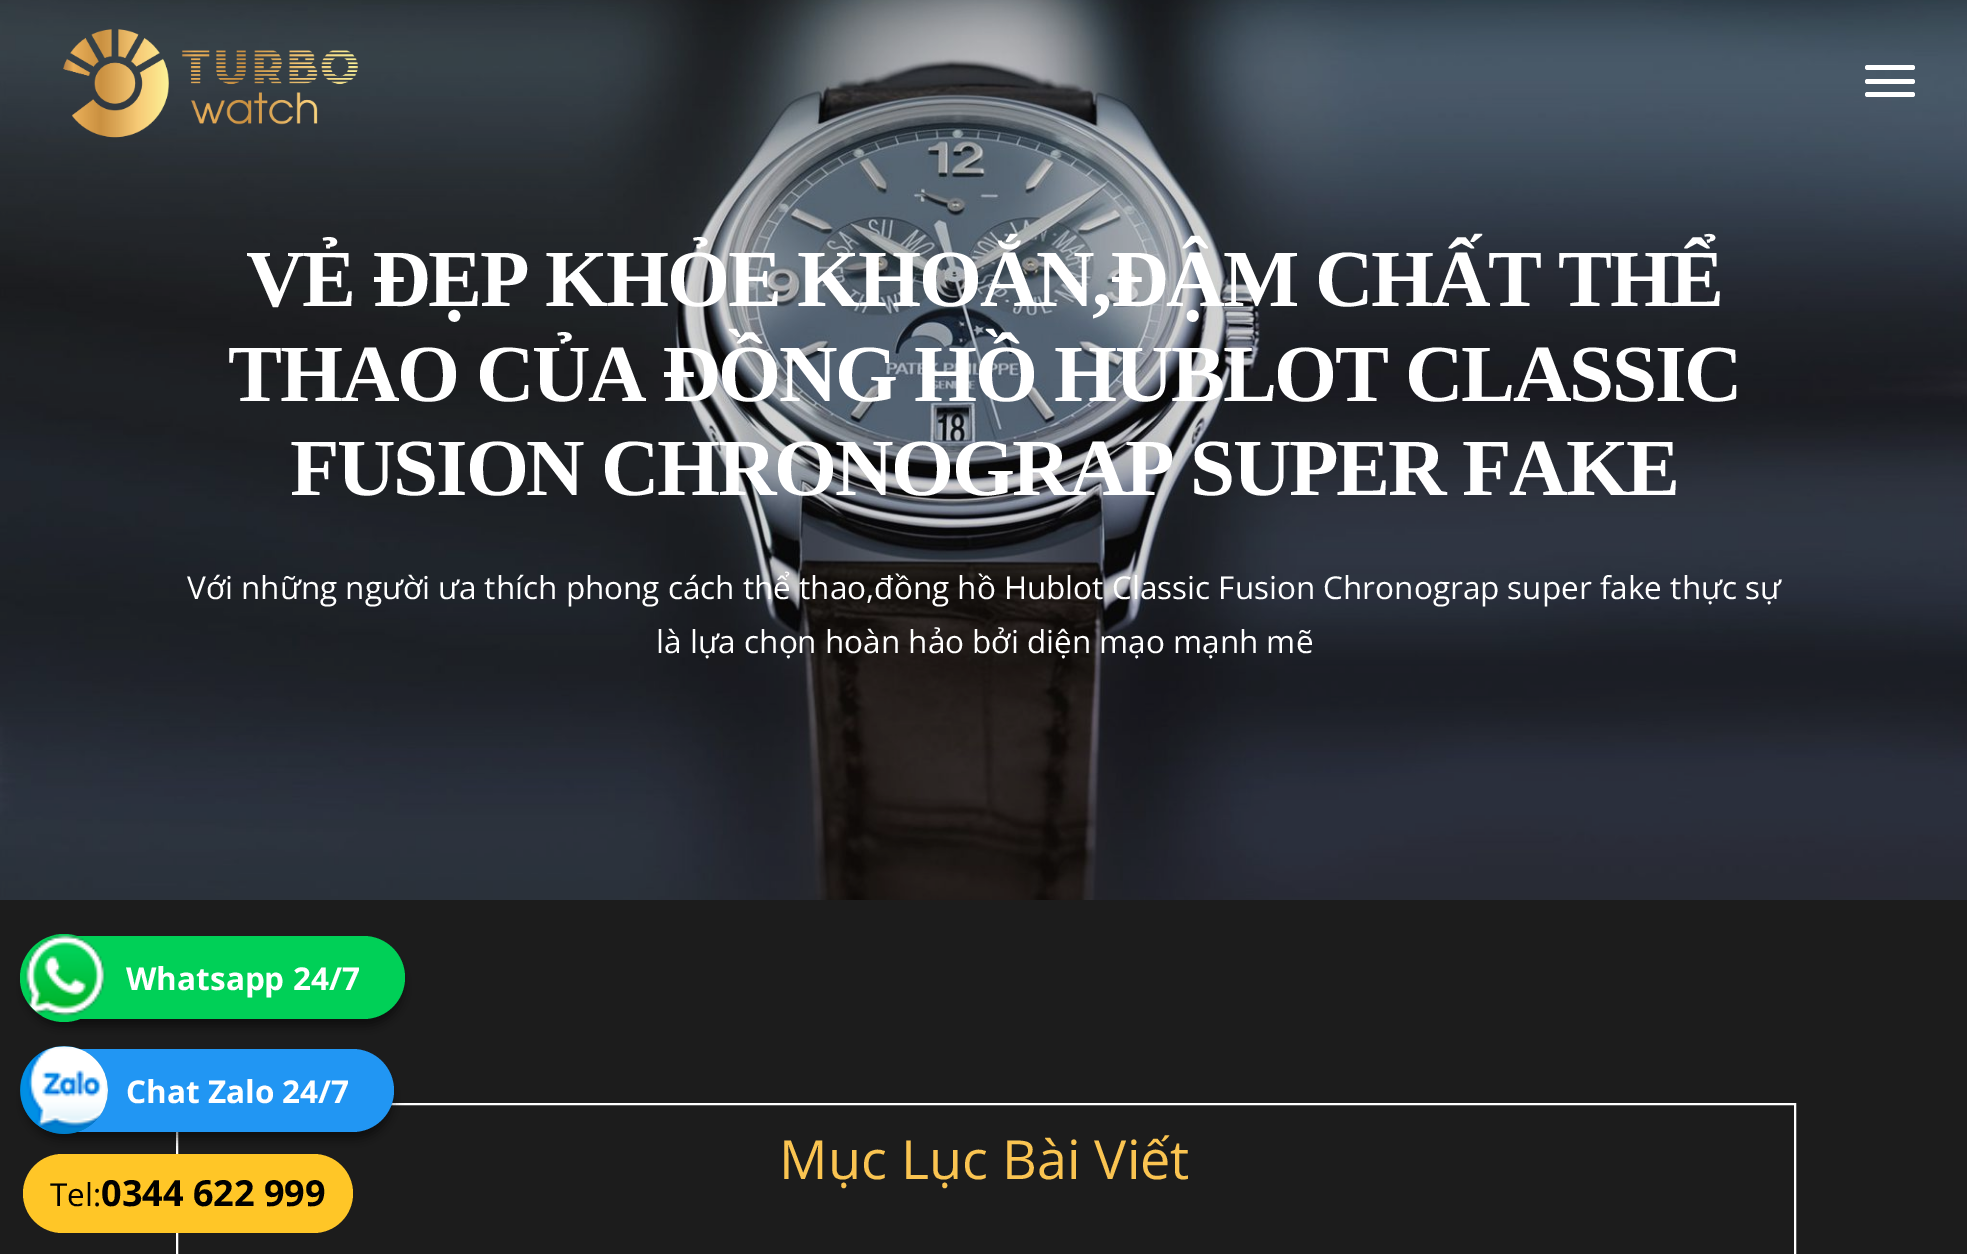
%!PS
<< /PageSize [1967 1254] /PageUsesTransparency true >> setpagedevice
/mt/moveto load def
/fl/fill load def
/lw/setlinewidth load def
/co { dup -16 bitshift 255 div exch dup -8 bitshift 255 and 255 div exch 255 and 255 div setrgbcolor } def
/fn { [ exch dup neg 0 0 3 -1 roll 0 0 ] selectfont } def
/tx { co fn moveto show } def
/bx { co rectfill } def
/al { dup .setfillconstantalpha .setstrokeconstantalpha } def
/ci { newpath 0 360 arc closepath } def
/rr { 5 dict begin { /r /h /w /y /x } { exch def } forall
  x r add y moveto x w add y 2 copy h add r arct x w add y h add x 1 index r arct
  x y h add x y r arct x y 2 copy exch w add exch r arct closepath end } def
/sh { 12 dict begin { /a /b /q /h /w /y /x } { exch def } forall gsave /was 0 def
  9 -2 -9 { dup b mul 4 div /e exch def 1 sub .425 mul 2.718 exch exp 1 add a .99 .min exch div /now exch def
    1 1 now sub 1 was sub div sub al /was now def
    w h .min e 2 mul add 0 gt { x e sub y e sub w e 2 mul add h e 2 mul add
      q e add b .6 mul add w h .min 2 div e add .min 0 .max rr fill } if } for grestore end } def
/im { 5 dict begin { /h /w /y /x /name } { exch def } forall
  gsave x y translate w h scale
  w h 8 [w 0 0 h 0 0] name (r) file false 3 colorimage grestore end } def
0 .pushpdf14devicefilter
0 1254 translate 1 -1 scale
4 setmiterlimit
0 0 1967 1254 16#1C1C1C bx
(media/2.raw) 0 0 1967 900 im
(media/1.raw) 63 29 295 109 im
16#FFFFFF co
1865 65 50 5 2.5 rr fl
1865 79 50 5 2.5 rr fl
1865 92 50 5 2.5 rr fl
16#000000 co
25 947 378 79 39.5 5.5 .5 sh
16#00D057 co
23 936 382 83 41.5 rr fl
64 978 44 ci fl
(media/3.raw) 24 935 82 81 im
16#FFFFFF co
2 lw
177 1104 1618 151 rectstroke
16#000000 co
25 1060 367 79 39.5 5.5 .5 sh
16#2196F3 co
23 1049 371 83 41.5 rr fl
16#0072B2 co
64 1090 44 ci fl
(media/4.raw) 20 1046 88 88 im
16#FFC627 co
23 1154 330 79 39.5 rr fl
/LiberationSerif-Bold 81 fn
16#FFFFFF co
246 306 mt -2.25 0 (VẺ ĐẸP KHỎE KHOẮN,ĐẬM CHẤT THỂ) ashow
228 401 mt -2.25 0 (THAO CỦA ĐỒNG HỒ HUBLOT CLASSIC) ashow
290 495 mt -2.25 0 (FUSION CHRONOGRAP SUPER FAKE) ashow
(Với những người ưa thích phong cách thể thao,đồng hồ Hublot Classic Fusion Chronograp super fake thực sự) 187 599 /OpenSans-Regular 31.5 16#FFFFFF tx
(là lựa chọn hoàn hảo bởi diện mạo mạnh mẽ) 656 653 /OpenSans-Regular 31.5 16#FFFFFF tx
(Whatsapp 24/7) 126 990 /OpenSans-Bold 31.5 16#FFFFFF tx
(Chat Zalo 24/7) 126 1103 /OpenSans-Bold 31.5 16#FFFFFF tx
(Mục Lục Bài Viết) 779 1179 /OpenSans-Regular 54 16#FAC451 tx
(Tel:) 50 1206 /OpenSans-Regular 31.5 16#000000 tx
(0344 622 999) 101 1206 /OpenSans-Bold 36 16#000000 tx
.poppdf14devicefilter showpage
